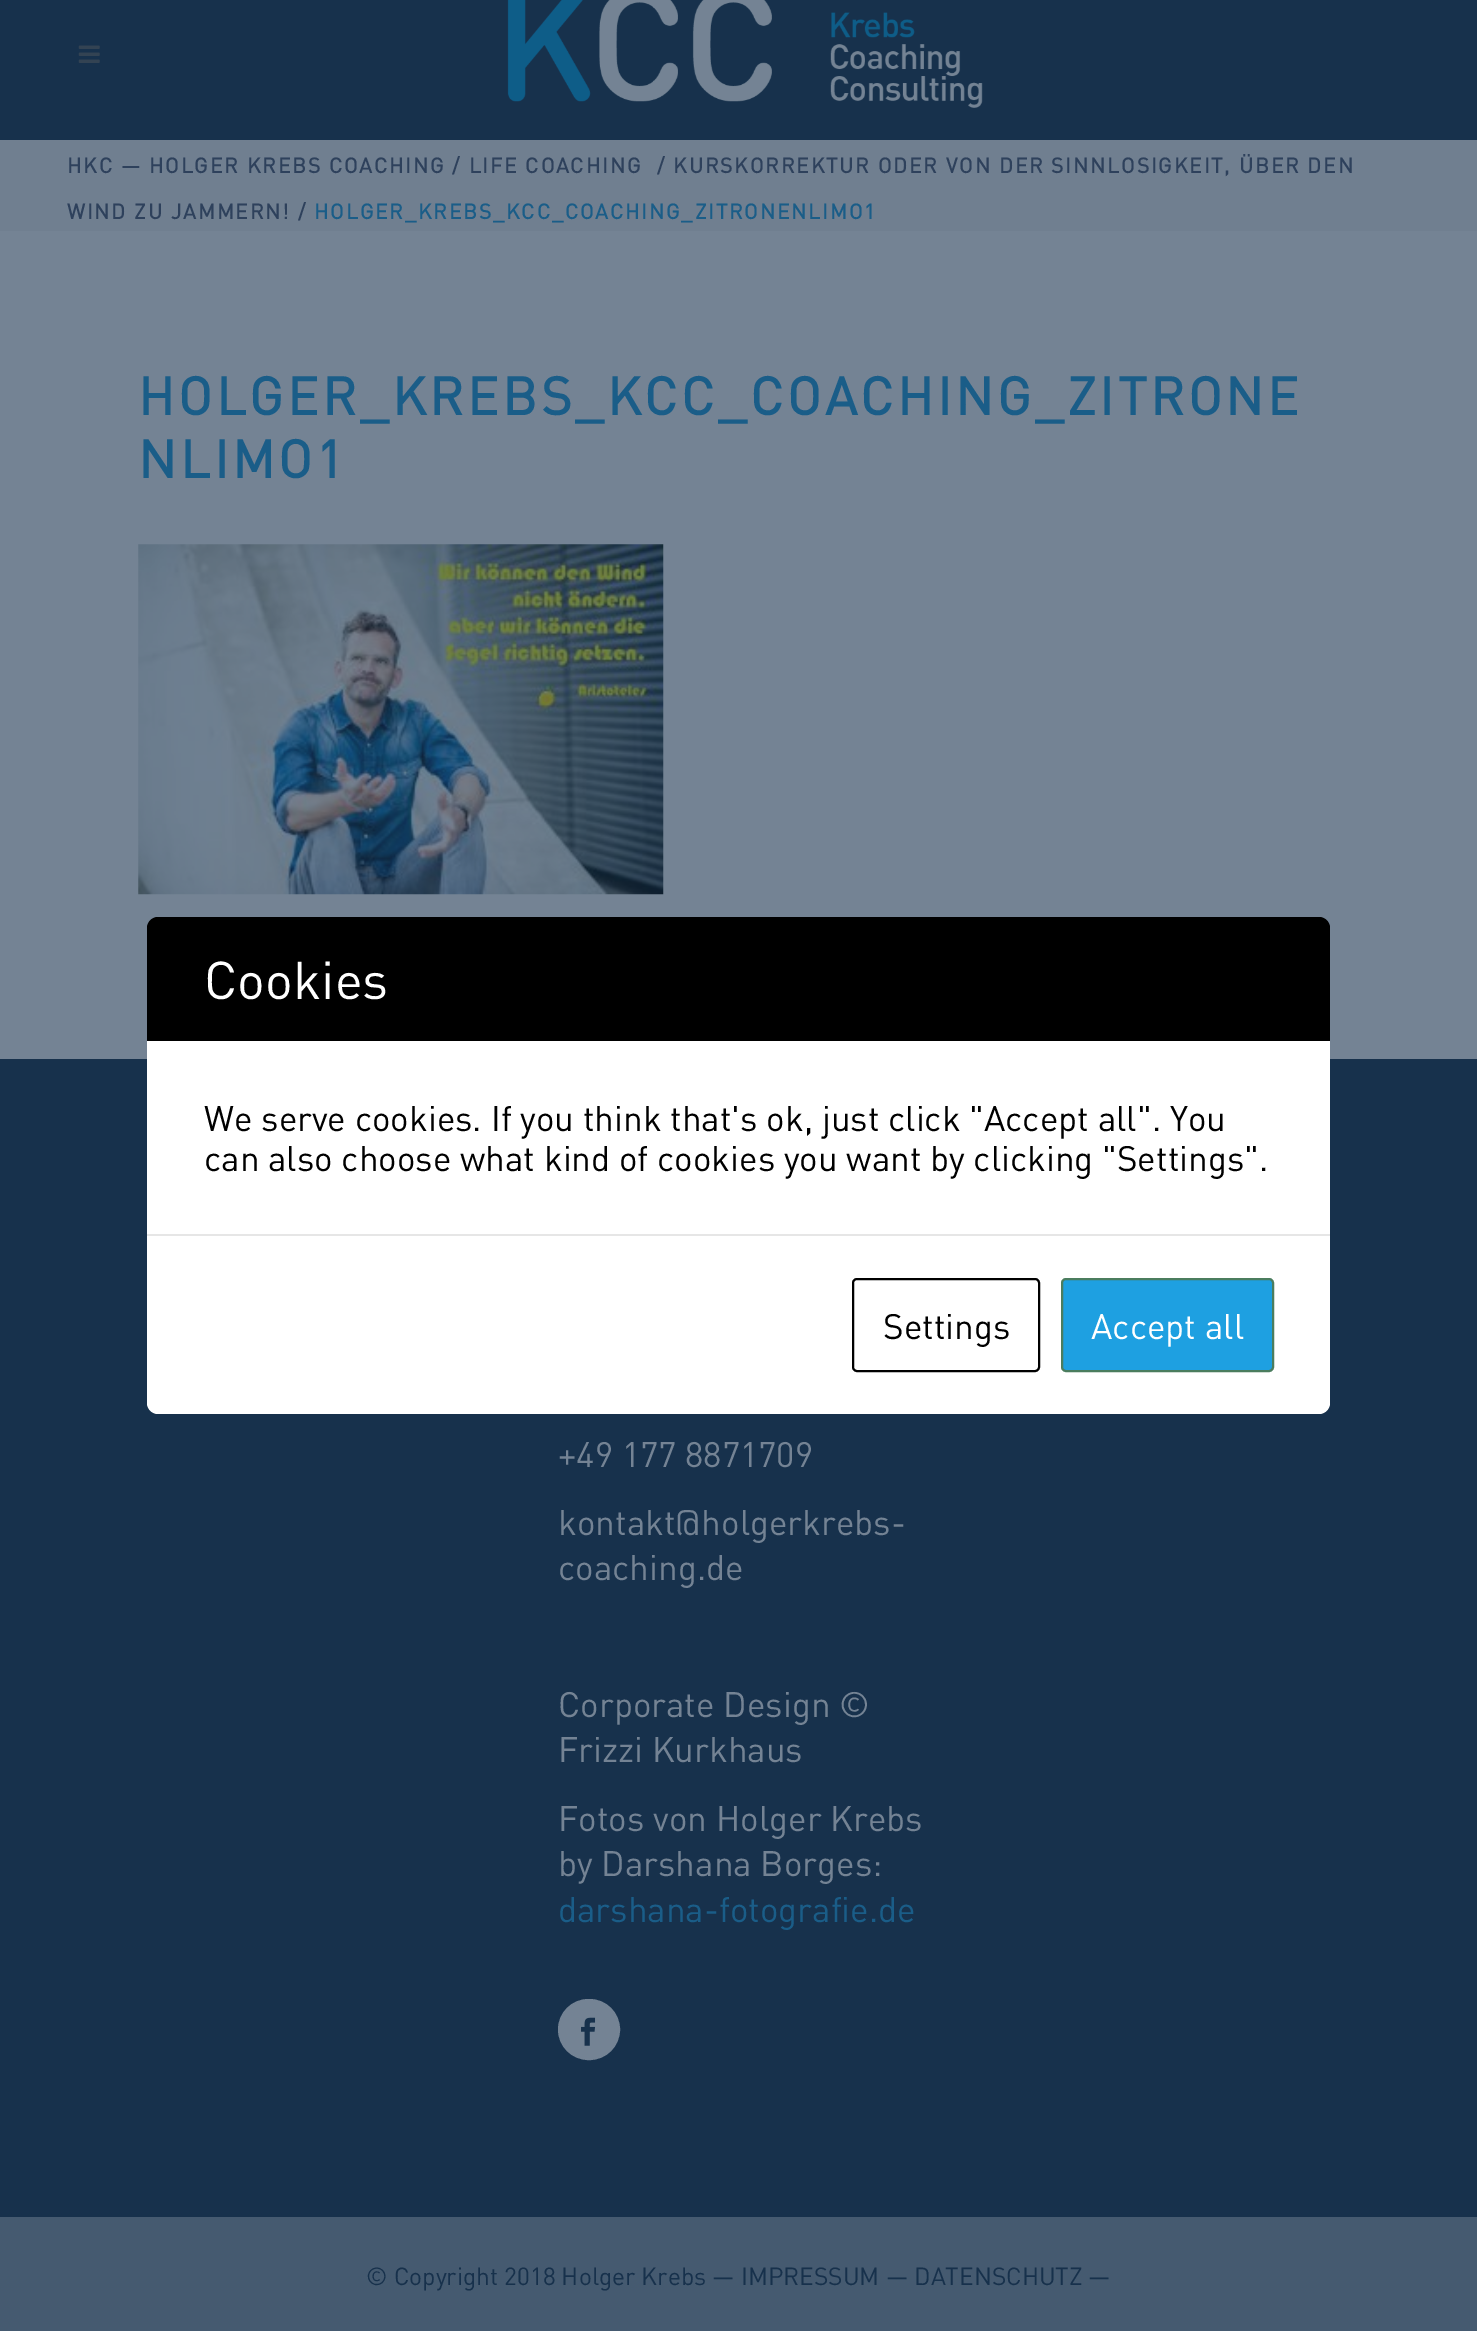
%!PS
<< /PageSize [1477 2331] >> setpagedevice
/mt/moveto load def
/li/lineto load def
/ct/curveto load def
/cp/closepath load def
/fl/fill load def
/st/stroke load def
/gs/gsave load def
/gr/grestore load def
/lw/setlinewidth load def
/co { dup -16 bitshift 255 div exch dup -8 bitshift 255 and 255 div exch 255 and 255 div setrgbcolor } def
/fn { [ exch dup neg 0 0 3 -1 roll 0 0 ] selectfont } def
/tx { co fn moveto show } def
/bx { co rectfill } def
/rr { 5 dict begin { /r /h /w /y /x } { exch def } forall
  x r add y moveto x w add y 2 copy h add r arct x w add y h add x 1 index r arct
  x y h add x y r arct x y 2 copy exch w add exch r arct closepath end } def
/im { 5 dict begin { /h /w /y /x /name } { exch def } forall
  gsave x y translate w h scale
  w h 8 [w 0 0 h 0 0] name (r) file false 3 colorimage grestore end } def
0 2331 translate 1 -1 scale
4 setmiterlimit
0 0 1477 2331 16#748394 bx
0 0 1477 140 16#17314C bx
(media/1.raw) 78 45 22 18 im
(media/2.raw) 507 0 476 108 im
0 140 1477 91 16#707F90 bx
(media/3.raw) 138 544 526 351 im
0 1059 1477 1158 16#17314C bx
16#748394 co
559 2000 60 59 29.5 rr gs fl gr
2 lw
st
(media/4.raw) 581 2017 15 29 im
0 2217 1477 114 16#455A70 bx
16#000000 co
158 917 mt 1319 917 li 1325 917 1330 922 1330 928 ct 1330 1041 li 147 1041 li 147 928 li 147 922 152 917 158 917 ct cp fl
147 1041 1183 193 16#FFFFFF bx
147 1234 mt 1330 1234 li 1330 1403 li 1330 1409 1325 1414 1319 1414 ct 158 1414 li 152 1414 147 1409 147 1403 ct cp fl
147 1234 1183 2 16#E6E6E6 bx
16#000000 co
853 1279 186 92 4 rr st
16#1EA0E1 co
1062 1279 211 92 4 rr gs fl gr
16#4B7D5E co
st
/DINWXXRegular-Bold 21 fn
16#2E415C co
67 173 mt 1.75 0 (HKC — HOLGER KREBS COACHING / LIFE COACHING) ashow
657 173 mt 1.75 0 (/ KURSKORREKTUR ODER VON DER SINNLOSIGKEIT, ÜBER DEN) ashow
67 219 mt 1.75 0 (WIND ZU JAMMERN! /) ashow
16#1A5D88 co
314 219 mt 1.75 0 (HOLGER_KREBS_KCC_COACHING_ZITRONENLIMO1) ashow
/DINWXXRegular-Bold 52.5 fn
138 415 mt 3.5 0 (HOLGER_KREBS_KCC_COACHING_ZITRONE) ashow
138 478 mt 3.5 0 (NLIMO1) ashow
(+49 177 8871709) 558 1467 /DINWXXRegular-Regular 35 16#748394 tx
(kontakt@holgerkrebs-) 558 1535 /DINWXXRegular-Regular 35 16#748394 tx
(coaching.de) 558 1580 /DINWXXRegular-Regular 35 16#748394 tx
(Corporate Design ©) 558 1717 /DINWXXRegular-Regular 35 16#748394 tx
(Frizzi Kurkhaus) 558 1762 /DINWXXRegular-Regular 35 16#748394 tx
(Fotos von Holger Krebs) 558 1831 /DINWXXRegular-Regular 35 16#748394 tx
(by Darshana Borges:) 558 1876 /DINWXXRegular-Regular 35 16#748394 tx
(darshana-fotografie.de) 558 1922 /DINWXXRegular-Regular 35 16#1A5D88 tx
(© Copyright 2018 Holger Krebs — IMPRESSUM — DATENSCHUTZ —) 366 2285 /DINWXXRegular-Regular 24.5 16#17314C tx
(Cookies) 204 999 /DINWXXRegular-Regular 52.5 16#FFFFFF tx
(We serve cookies. If you think that's ok, just click "Accept all". You) 204 1131 /DINWXXRegular-Regular 35 16#000000 tx
(can also choose what kind of cookies you want by clicking "Settings".) 204 1171 /DINWXXRegular-Regular 35 16#000000 tx
(Settings) 883 1339 /DINWXXRegular-Regular 35 16#000000 tx
(Accept all) 1091 1339 /DINWXXRegular-Regular 35 16#FFFFFF tx
showpage
